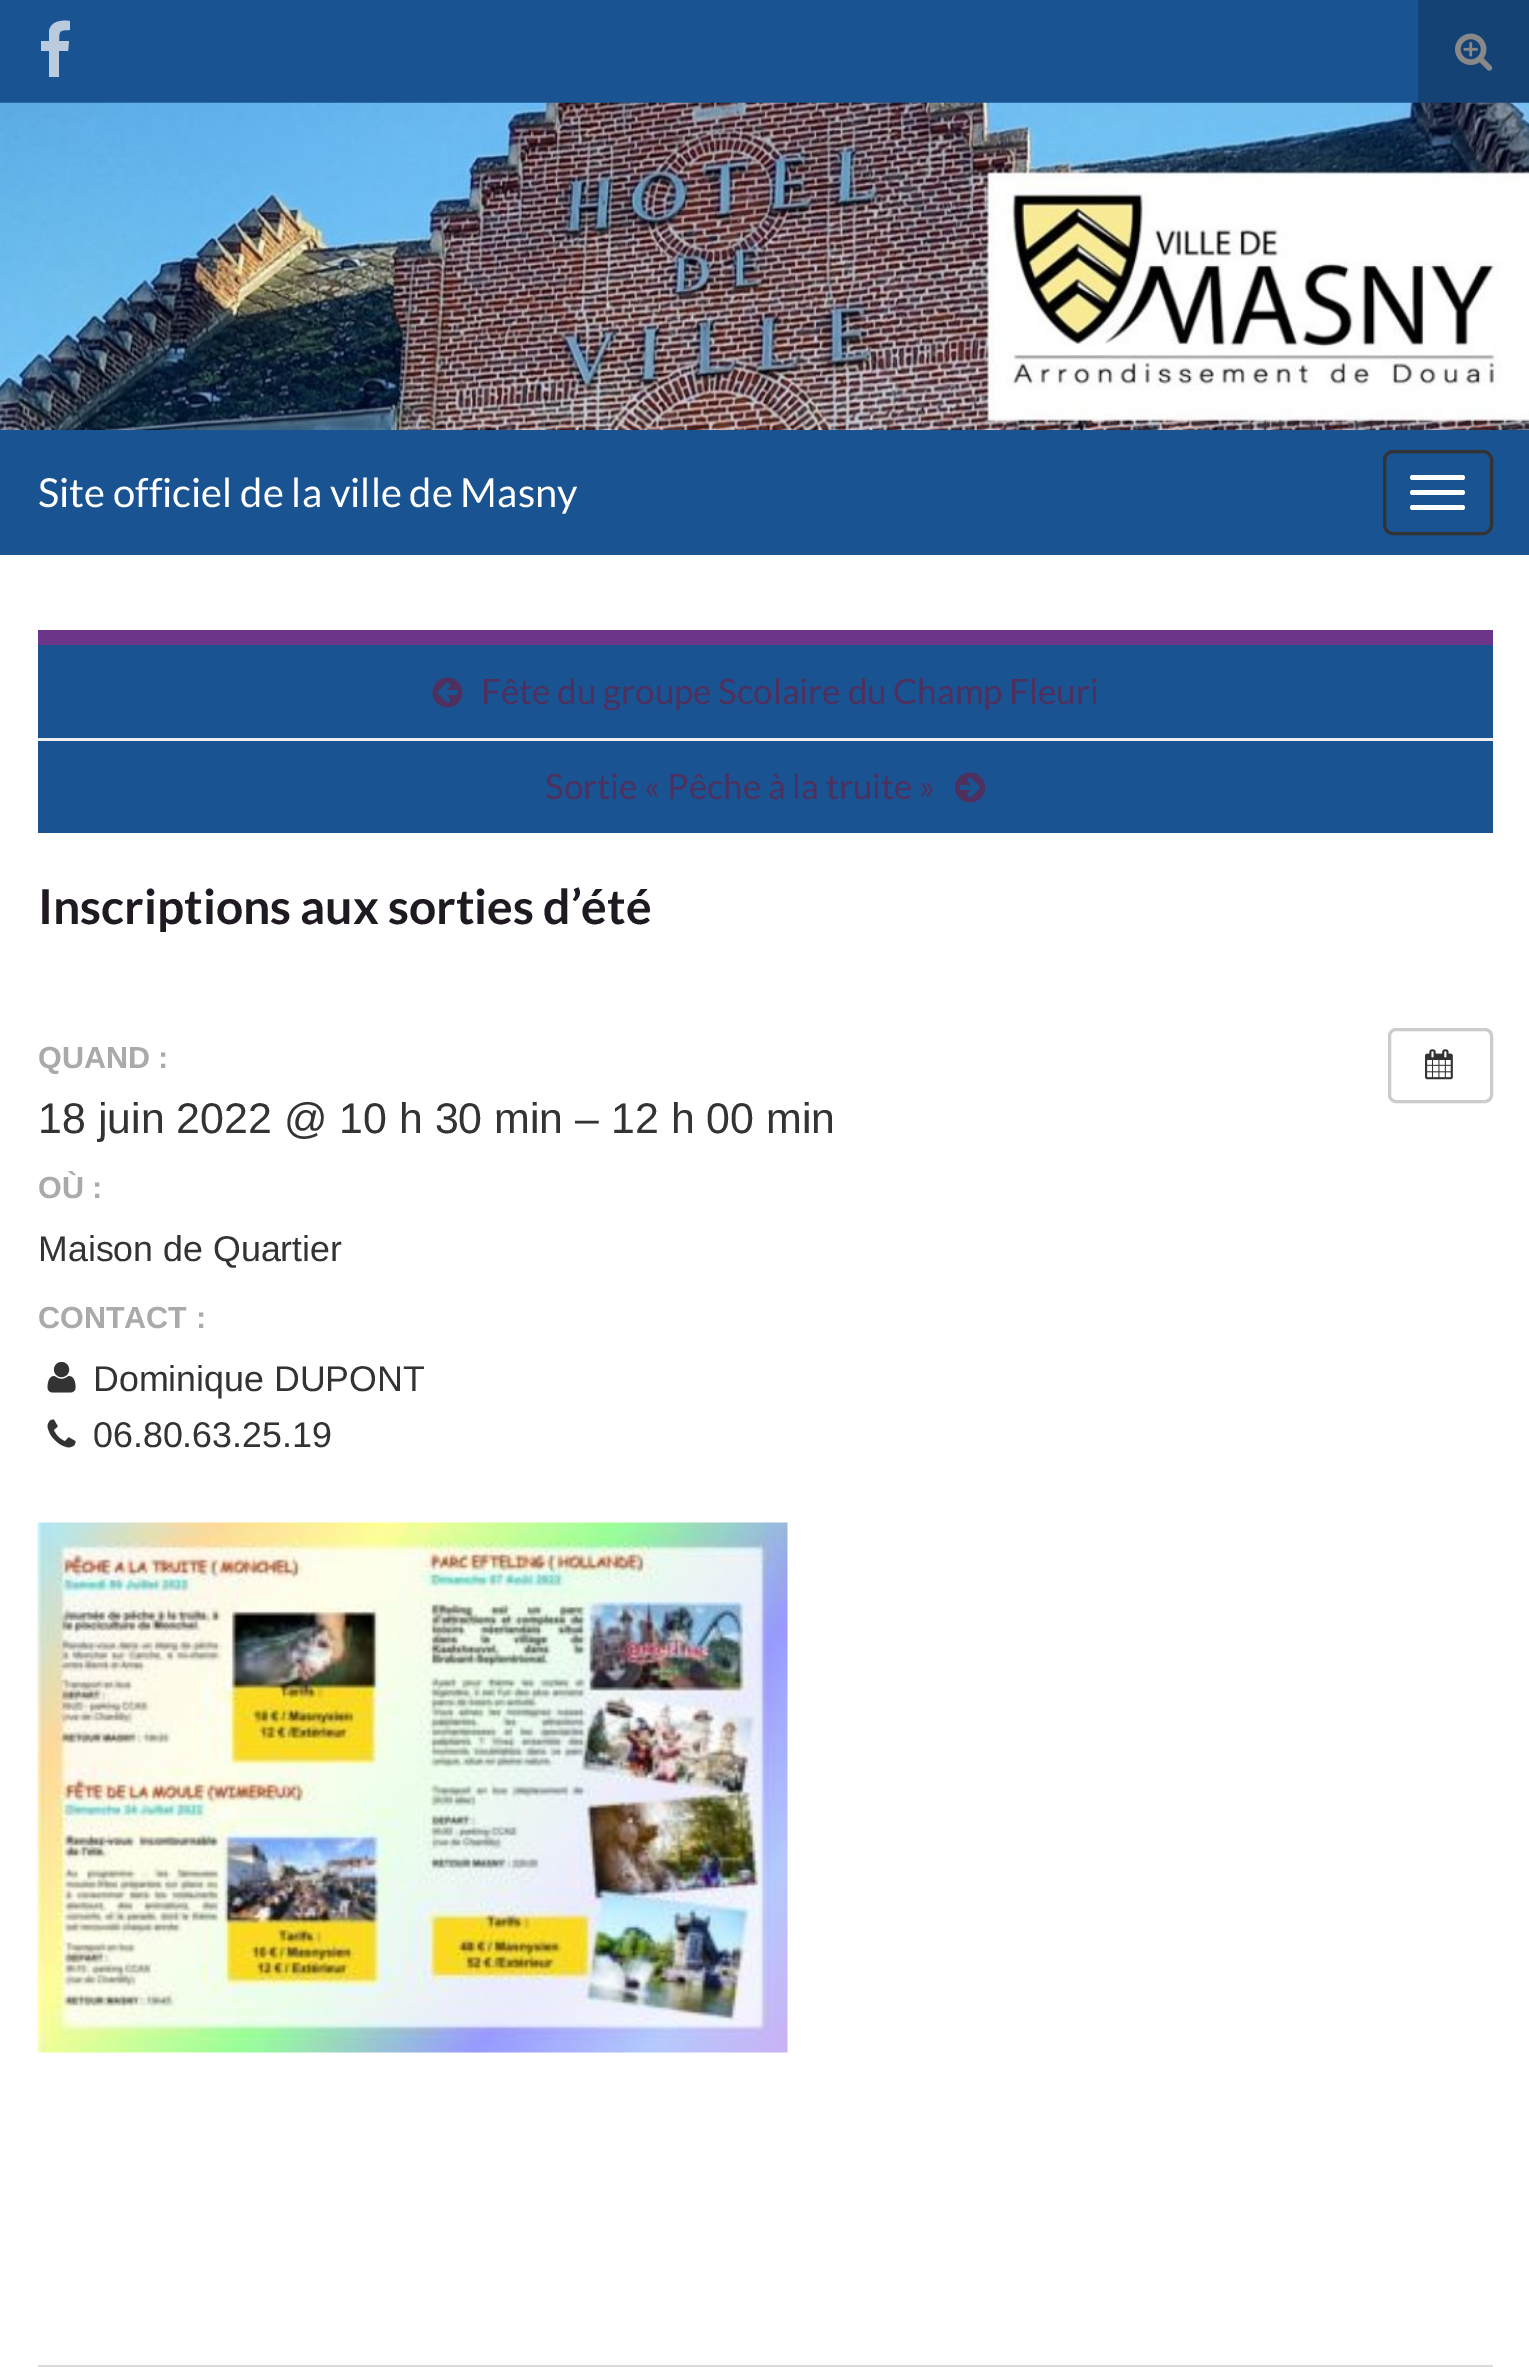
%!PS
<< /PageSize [1529 2367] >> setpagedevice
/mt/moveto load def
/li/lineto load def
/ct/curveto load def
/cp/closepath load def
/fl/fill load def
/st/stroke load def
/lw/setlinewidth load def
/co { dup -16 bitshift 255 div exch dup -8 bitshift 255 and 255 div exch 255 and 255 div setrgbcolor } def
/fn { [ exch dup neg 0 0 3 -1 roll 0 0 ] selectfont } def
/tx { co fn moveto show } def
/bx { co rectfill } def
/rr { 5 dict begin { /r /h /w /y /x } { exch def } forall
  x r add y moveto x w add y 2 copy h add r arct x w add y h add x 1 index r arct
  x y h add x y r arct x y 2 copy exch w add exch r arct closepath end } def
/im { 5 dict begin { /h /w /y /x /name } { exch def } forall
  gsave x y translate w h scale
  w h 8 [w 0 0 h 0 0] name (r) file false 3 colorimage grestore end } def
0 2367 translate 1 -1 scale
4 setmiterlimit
0 0 1529 2367 16#FFFFFF bx
0 0 1418 103 16#195392 bx
16#BACBDE co
70 21 mt 70 30 li 59 30 59 31 59 41 ct 69 41 li 68 51 li 59 51 li 59 77 li 49 77 li 49 51 li 41 51 li 41 41 li 49 41 li 49 31 li 51 21 61 20 70 21 ct cp fl
1418 0 111 103 16#144275 bx
(media/1.raw) 1455 33 38 38 im
(media/2.raw) 0 102 1529 328 im
0 430 1529 125 16#195392 bx
16#333333 co
3 lw
1384.5 451.5 107 82 8.5 rr st
16#FFFFFF co
1410 475 55 5 2.5 rr fl
1410 490 55 5 2.5 rr fl
1410 505 55 5 2.5 rr fl
38 645 1455 188 16#195392 bx
38 630 1455 15 16#6B3589 bx
(media/3.raw) 432 677 31 31 im
38 738 1455 3 16#EEEEEE bx
(media/4.raw) 955 772 30 31 im
(media/5.raw) 47 1361 29 32 im
(media/6.raw) 47 1419 29 29 im
16#CCCCCC co
1389.5 1029.5 102 72 6.5 rr st
(media/7.raw) 1425 1049 28 31 im
(media/8.raw) 37 1522 751 531 im
38 2365 1455 2 16#DBDBDB bx
(Site officiel de la ville de Masny) 38 507 /Lato-Regular 40 16#FFFFFF tx
(Fête du groupe Scolaire du Champ Fleuri) 481 704 /Lato-Regular 35 16#4E305E tx
(Sortie « Pêche à la truite ») 545 799 /Lato-Regular 35 16#4E305E tx
(Inscriptions aux sorties d’été) 38 924 /Lato-Bold 48 16#1F1A22 tx
(QUAND :) 38 1068 /LiberationSans-Bold 30.5 16#AAAAAA tx
(18 juin 2022 @ 10 h 30 min – 12 h 00 min) 38 1133 /LiberationSans-Regular 42.9 16#333333 tx
(OÙ :) 38 1198 /LiberationSans-Bold 30.5 16#AAAAAA tx
(Maison de Quartier) 38 1261 /LiberationSans-Regular 35.75 16#333333 tx
(CONTACT :) 38 1328 /LiberationSans-Bold 30.5 16#AAAAAA tx
(Dominique DUPONT) 93 1391 /LiberationSans-Regular 35.75 16#333333 tx
(06.80.63.25.19) 93 1447 /LiberationSans-Regular 35.75 16#333333 tx
showpage
